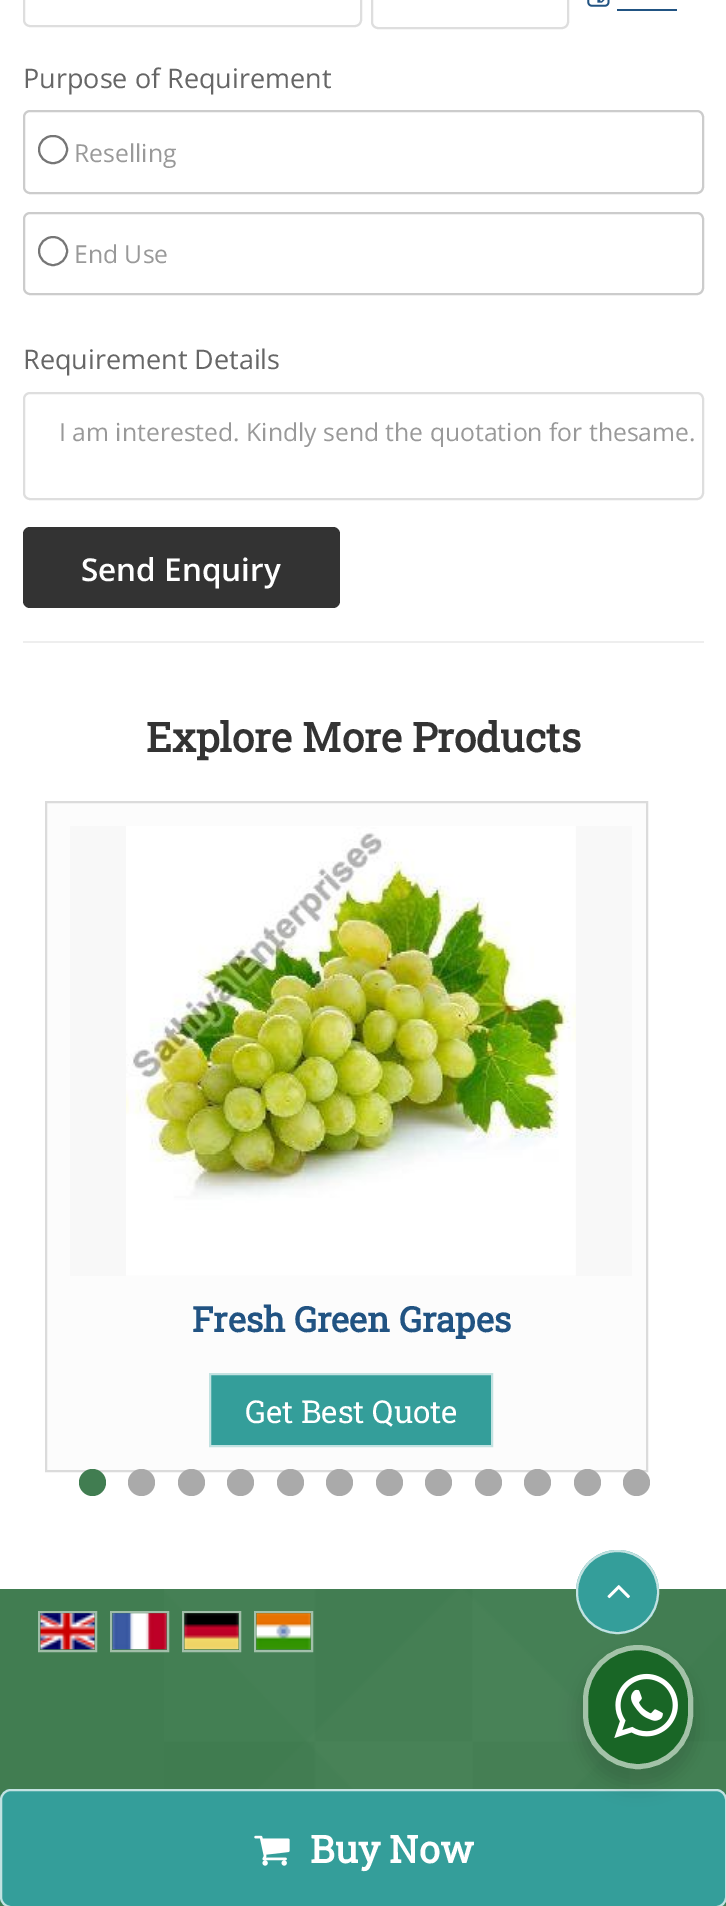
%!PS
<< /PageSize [726 1906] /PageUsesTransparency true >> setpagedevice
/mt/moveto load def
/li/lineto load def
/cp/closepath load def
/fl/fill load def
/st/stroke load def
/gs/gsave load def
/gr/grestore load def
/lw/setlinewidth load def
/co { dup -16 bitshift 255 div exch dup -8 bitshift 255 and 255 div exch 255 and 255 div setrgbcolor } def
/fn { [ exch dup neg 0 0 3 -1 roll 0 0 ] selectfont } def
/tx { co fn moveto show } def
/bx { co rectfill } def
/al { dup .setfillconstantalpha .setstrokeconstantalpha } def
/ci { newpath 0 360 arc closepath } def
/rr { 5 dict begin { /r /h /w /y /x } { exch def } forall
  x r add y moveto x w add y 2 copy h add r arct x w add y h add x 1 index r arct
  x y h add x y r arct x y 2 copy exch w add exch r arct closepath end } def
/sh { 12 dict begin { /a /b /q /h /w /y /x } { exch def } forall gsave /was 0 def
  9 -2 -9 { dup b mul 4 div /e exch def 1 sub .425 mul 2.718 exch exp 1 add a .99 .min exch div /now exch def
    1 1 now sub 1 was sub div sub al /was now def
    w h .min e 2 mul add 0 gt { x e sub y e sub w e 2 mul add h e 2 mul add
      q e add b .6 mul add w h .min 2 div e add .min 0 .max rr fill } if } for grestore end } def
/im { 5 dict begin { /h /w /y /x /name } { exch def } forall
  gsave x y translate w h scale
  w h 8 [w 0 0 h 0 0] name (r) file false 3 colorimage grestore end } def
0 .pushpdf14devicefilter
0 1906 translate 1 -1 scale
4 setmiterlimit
0 0 726 1906 16#FFFFFF bx
23 641 681 2 16#EEEEEE bx
16#DEDEDE co
2 lw
24 -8 337 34 6 rr st
372 -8 196 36 6 rr st
(media/1.raw) 587 0 23 7 im
617 9 60 2 16#215382 bx
16#CCCCCC co
24 111 679 82 6 rr st
16#767676 co
39 136 28 27 13.5 rr st
16#CCCCCC co
24 213 679 81 6 rr st
16#767676 co
53 251 14 ci st
16#DEDEDE co
24 393 679 106 6 rr st
16#333333 co
23 527 317 81 7 rr fl
16#FCFCFC co
46 802 mt 647 802 li 647 1471 li 46 1471 li cp gs fl gr
16#DBDBDB co
st
70 826 562 450 16#F8F8F8 bx
(media/2.raw) 126 826 450 450 im
16#349E9A co
210 1374 mt 492 1374 li 492 1446 li 210 1446 li cp gs fl gr
16#C2E2E1 co
st
16#417D51 co
92.5 1482.5 13.5 ci fl
16#AAAAAA co
141.5 1482.5 13.5 ci fl
191.5 1482.5 13.5 ci fl
240.5 1482.5 13.5 ci fl
290.5 1482.5 13.5 ci fl
339.5 1482.5 13.5 ci fl
389.5 1482.5 13.5 ci fl
438.5 1482.5 13.5 ci fl
488.5 1482.5 13.5 ci fl
537.5 1482.5 13.5 ci fl
587.5 1482.5 13.5 ci fl
636.5 1482.5 13.5 ci fl
0 1589 726 317 16#417D51 bx
(media/4.raw) 164 1589 562 317 im
16#349E9A co
0 1789 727 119 11 rr fl
0.7 al
16#FFFFFF co
1 1790 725 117 10 rr st
1 al
(media/3.raw) 254 1835 36 31 im
16#A0BEA8 co
39 1612 57 39 rectstroke
0.5 al
16#FFFFFF co
111 1612 57 39 rectstroke
1 al
16#A2BFAA co
183 1612 57 39 rectstroke
16#A2C0AA co
255 1612 57 39 rectstroke
(media/5.raw) 40 1613 55 37 im
(media/6.raw) 112 1613 55 37 im
(media/7.raw) 184 1613 55 37 im
(media/8.raw) 256 1613 55 37 im
16#349E9A co
576 1550 83 84 41.5 rr fl
0.7 al
16#FFFFFF co
577 1551 81 82 40.5 rr st
1 al
(media/9.raw) 607 1585 23 14 im
16#000000 co
578 1654 120 133 60 9 .14 sh
16#196626 co
583 1645 110 124 55 rr fl
0.6 al
16#FFFFFF co
5 lw
585.5 1647.5 105 119 52.5 rr st
1 al
(media/10.raw) 614 1673 64 65 im
(Purpose of Requirement) 23 88 /OpenSans-Regular 27 16#666666 tx
(Reselling) 74 162 /OpenSans-Regular 24.75 16#999999 tx
(End Use) 74 263 /OpenSans-Regular 24.75 16#999999 tx
(Requirement Details) 23 369 /OpenSans-Regular 27 16#666666 tx
(I am interested. Kindly send the quotation for thesame.) 59 441 /OpenSans-Regular 24.75 16#999999 tx
(Send Enquiry) 81 581 /OpenSans-SemiBold 31.5 16#FFFFFF tx
(Explore More Products) 146 752 /RobotoSlab-Bold 40.5 16#333333 tx
(Fresh Green Grapes) 192 1332 /RobotoSlab-Bold 34.75 16#215382 tx
(Get Best Quote) 245 1423 /RobotoSlab-Regular 31.5 16#FFFFFF tx
(Buy Now) 310 1863 /RobotoSlab-Bold 38 16#FFFFFF tx
.poppdf14devicefilter showpage
